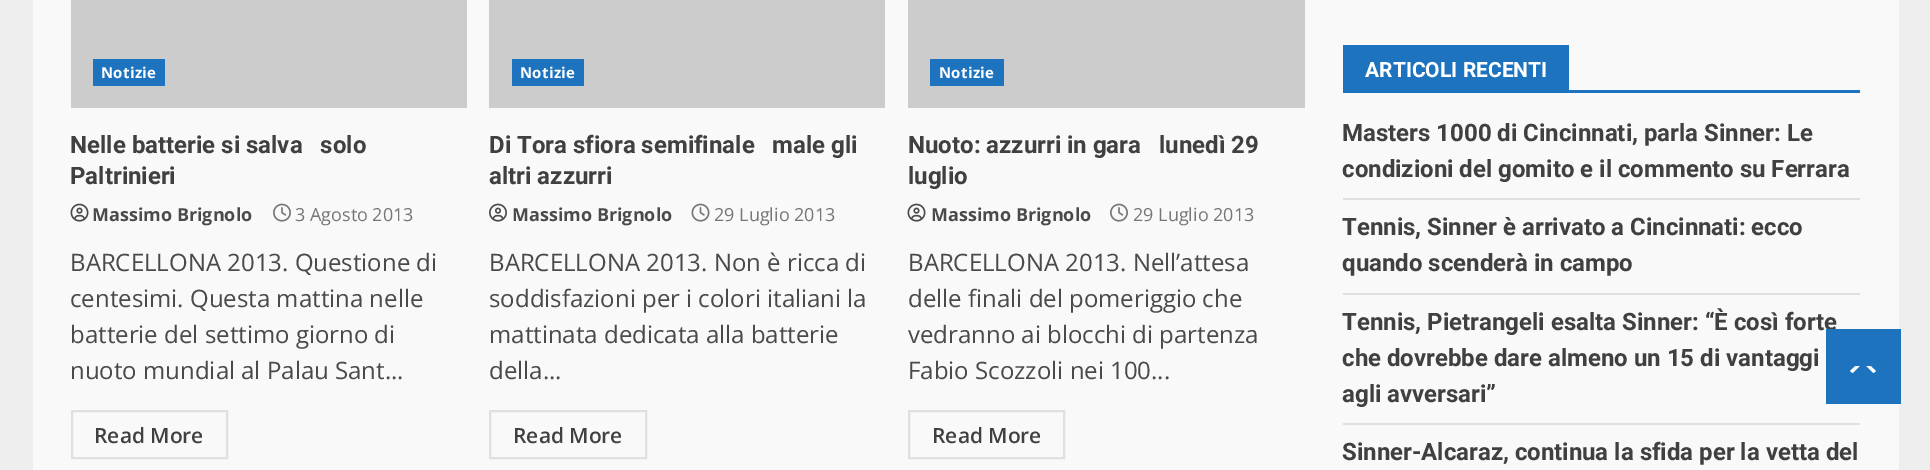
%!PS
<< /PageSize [1930 470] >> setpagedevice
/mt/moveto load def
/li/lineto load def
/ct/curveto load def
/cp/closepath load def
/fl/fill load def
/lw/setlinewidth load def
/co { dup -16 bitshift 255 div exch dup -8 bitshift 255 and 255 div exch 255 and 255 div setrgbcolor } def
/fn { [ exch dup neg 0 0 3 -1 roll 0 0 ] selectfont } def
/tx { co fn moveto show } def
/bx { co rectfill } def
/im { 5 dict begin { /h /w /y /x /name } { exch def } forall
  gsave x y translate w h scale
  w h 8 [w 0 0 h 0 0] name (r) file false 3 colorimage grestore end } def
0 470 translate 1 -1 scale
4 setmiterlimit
0 0 1930 470 16#EEEEEE bx
33 0 1866 470 16#F9F9F9 bx
71 0 396 108 16#CCCCCC bx
93 59 72 27 16#1E73BE bx
(media/1.raw) 70 203 19 19 im
(media/2.raw) 273 203 18 19 im
16#E0E0E0 co
2 lw
72 411 155 47 rectstroke
489 0 396 108 16#CCCCCC bx
512 59 72 27 16#1E73BE bx
(media/3.raw) 489 203 18 19 im
(media/4.raw) 691 203 19 19 im
16#E0E0E0 co
490 411 156 47 rectstroke
908 0 397 108 16#CCCCCC bx
930 59 74 27 16#1E73BE bx
(media/1.raw) 907 203 19 19 im
(media/2.raw) 1110 203 18 19 im
16#E0E0E0 co
909 411 155 47 rectstroke
1343 90 517 3 16#1E73BE bx
1343 45 226 45 16#1E73BE bx
1343 198 517 2 16#E0E0E0 bx
1343 293 517 2 16#E0E0E0 bx
1343 423 517 2 16#E0E0E0 bx
/OpenSans-Bold 15 fn
16#FFFFFF co
101 78 mt .25 0 (Notizie) ashow
(Nelle batterie si salva   solo) 70 153 /Roboto-Bold 24 16#404040 tx
(Paltrinieri) 70 184 /Roboto-Bold 24 16#404040 tx
(Massimo Brignolo) 92 221 /OpenSans-Bold 18 16#4A4A4A tx
(3 Agosto 2013) 295 221 /OpenSans-Regular 18 16#767676 tx
(BARCELLONA 2013. Questione di) 70 271 /OpenSans-Regular 24 16#4A4A4A tx
(centesimi. Questa mattina nelle) 70 307 /OpenSans-Regular 24 16#4A4A4A tx
(batterie del settimo giorno di) 70 343 /OpenSans-Regular 24 16#4A4A4A tx
(nuoto mundial al Palau Sant...) 70 379 /OpenSans-Regular 24 16#4A4A4A tx
(Read More) 94 443 /OpenSans-SemiBold 21 16#404040 tx
/OpenSans-Bold 15 fn
16#FFFFFF co
520 78 mt .25 0 (Notizie) ashow
(Di Tora sfiora semifinale   male gli) 489 153 /Roboto-Bold 24 16#404040 tx
(altri azzurri) 489 184 /Roboto-Bold 24 16#404040 tx
(Massimo Brignolo) 512 221 /OpenSans-Bold 18 16#4A4A4A tx
(29 Luglio 2013) 714 221 /OpenSans-Regular 18 16#767676 tx
(BARCELLONA 2013. Non è ricca di) 489 271 /OpenSans-Regular 24 16#4A4A4A tx
(soddisfazioni per i colori italiani la) 489 307 /OpenSans-Regular 24 16#4A4A4A tx
(mattinata dedicata alla batterie) 489 343 /OpenSans-Regular 24 16#4A4A4A tx
(della...) 489 379 /OpenSans-Regular 24 16#4A4A4A tx
(Read More) 513 443 /OpenSans-SemiBold 21 16#404040 tx
/OpenSans-Bold 15 fn
16#FFFFFF co
939 78 mt .25 0 (Notizie) ashow
(Nuoto: azzurri in gara   lunedì 29) 908 153 /Roboto-Bold 24 16#404040 tx
(luglio) 908 184 /Roboto-Bold 24 16#404040 tx
(Massimo Brignolo) 931 221 /OpenSans-Bold 18 16#4A4A4A tx
(29 Luglio 2013) 1133 221 /OpenSans-Regular 18 16#767676 tx
(BARCELLONA 2013. Nell’attesa) 908 271 /OpenSans-Regular 24 16#4A4A4A tx
(delle finali del pomeriggio che) 908 307 /OpenSans-Regular 24 16#4A4A4A tx
(vedranno ai blocchi di partenza) 908 343 /OpenSans-Regular 24 16#4A4A4A tx
(Fabio Scozzoli nei 100...) 908 379 /OpenSans-Regular 24 16#4A4A4A tx
(Read More) 932 443 /OpenSans-SemiBold 21 16#404040 tx
(ARTICOLI RECENTI) 1365 77 /Roboto-Bold 21 16#FFFFFF tx
(Masters 1000 di Cincinnati, parla Sinner: Le) 1342 141 /Roboto-Bold 24 16#404040 tx
(condizioni del gomito e il commento su Ferrara) 1342 177 /Roboto-Bold 24 16#404040 tx
(Tennis, Sinner è arrivato a Cincinnati: ecco) 1342 235 /Roboto-Bold 24 16#404040 tx
(quando scenderà in campo) 1342 271 /Roboto-Bold 24 16#404040 tx
(Tennis, Pietrangeli esalta Sinner: “È così forte) 1342 330 /Roboto-Bold 24 16#404040 tx
(che dovrebbe dare almeno un 15 di vantaggi) 1342 366 /Roboto-Bold 24 16#404040 tx
(agli avversari”) 1342 402 /Roboto-Bold 24 16#404040 tx
(Sinner-Alcaraz, continua la sfida per la vetta del) 1342 460 /Roboto-Bold 24 16#404040 tx
1826 329 75 75 16#1E73BE bx
16#FFFFFF co
1855.5 373.5 mt 1870.5 373.5 li 1872.5 373.5 1874.5 372.5 1876 371 ct 1870.5 366 li 1855.5 366 li 1850 371 li 1851.5 372.5 1853.5 373.5 1855.5 373.5 ct cp fl
16#1E73BE co
1878 378 mt 1848 378 li 1863 363 li cp fl
showpage
